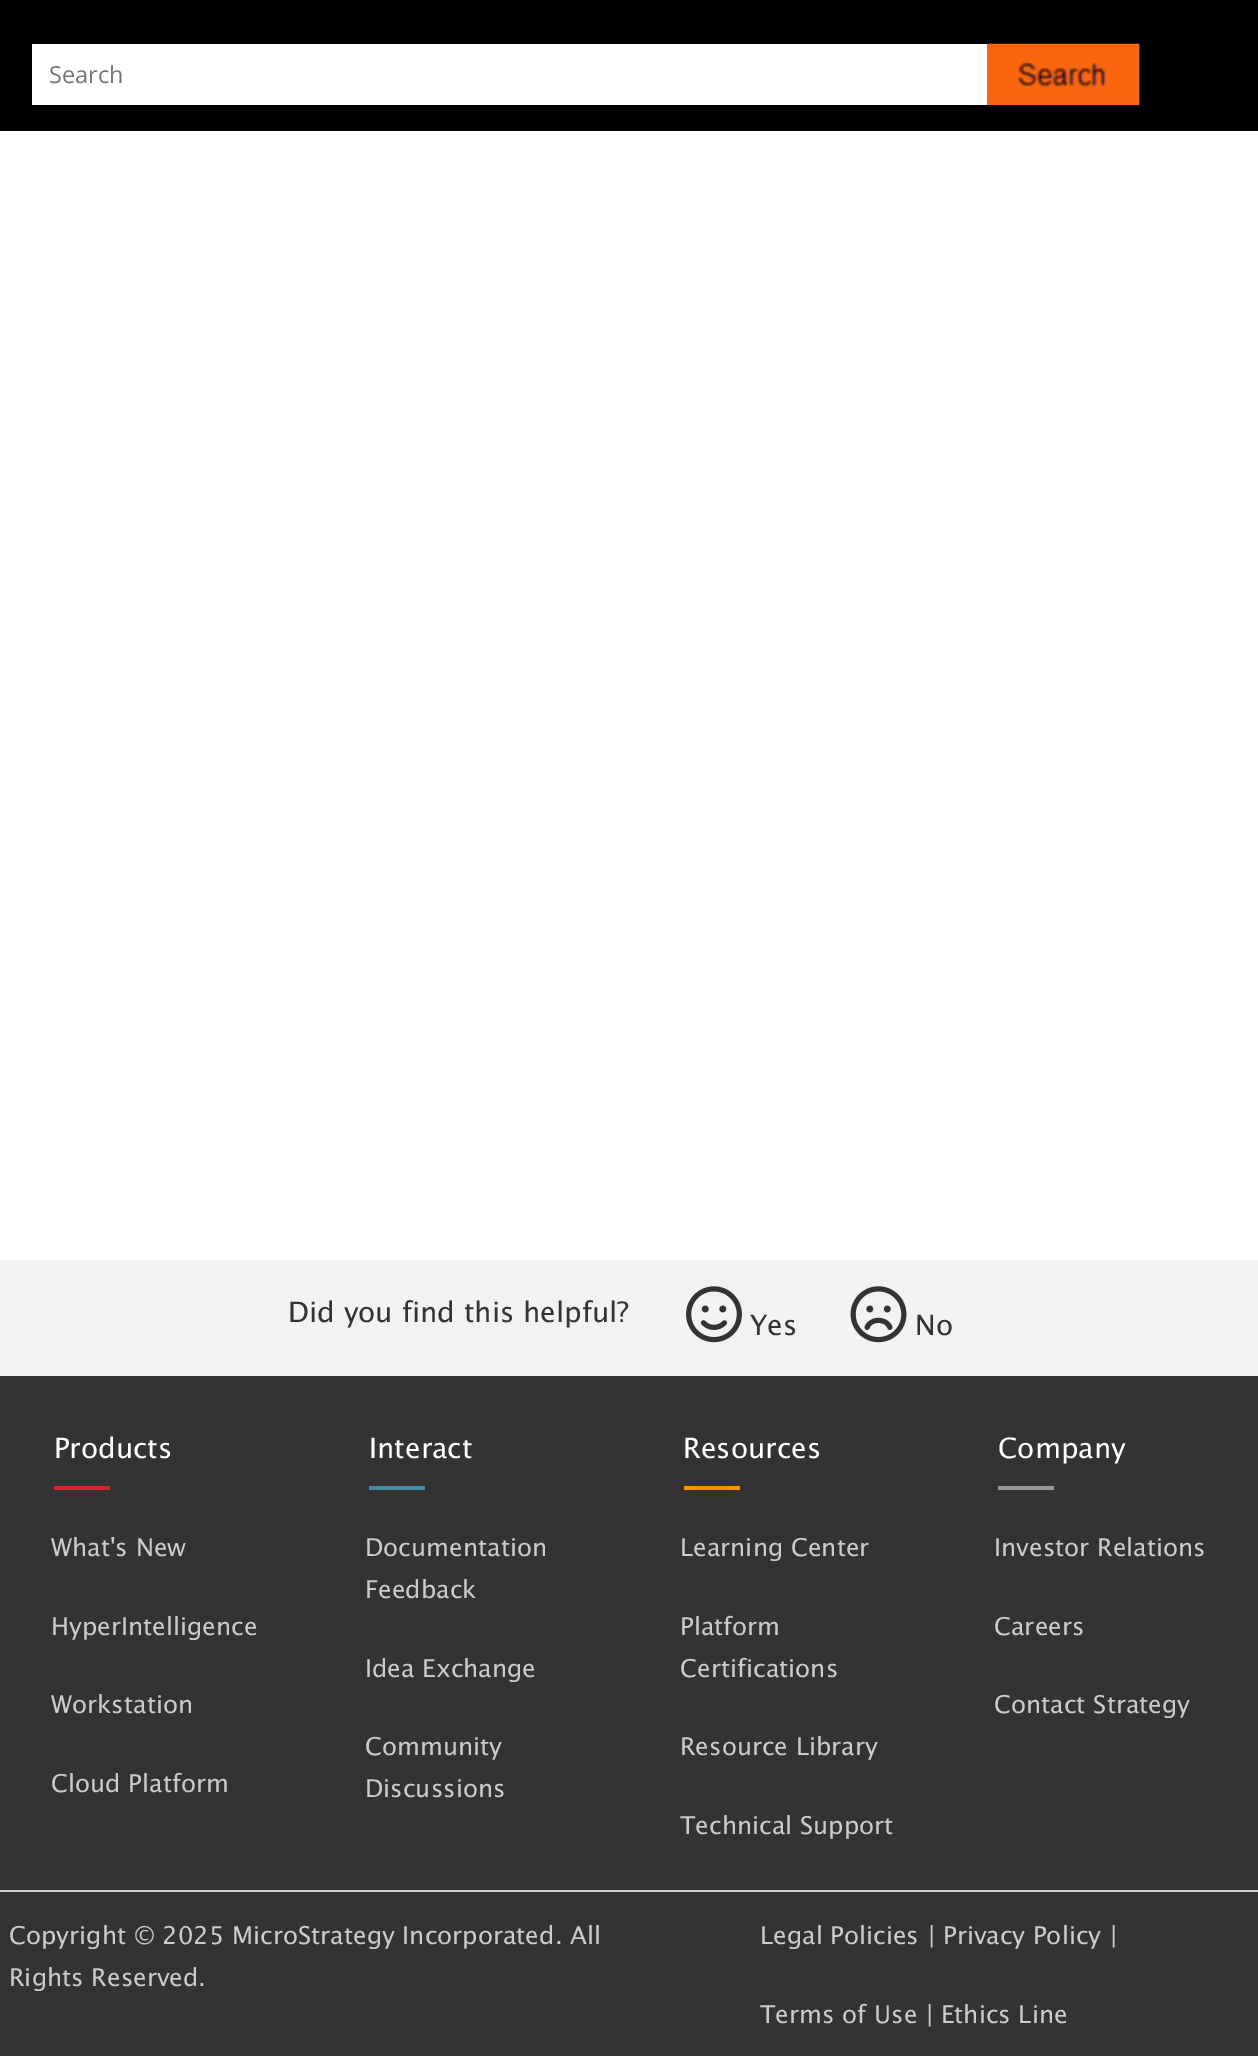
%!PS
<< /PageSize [1258 2056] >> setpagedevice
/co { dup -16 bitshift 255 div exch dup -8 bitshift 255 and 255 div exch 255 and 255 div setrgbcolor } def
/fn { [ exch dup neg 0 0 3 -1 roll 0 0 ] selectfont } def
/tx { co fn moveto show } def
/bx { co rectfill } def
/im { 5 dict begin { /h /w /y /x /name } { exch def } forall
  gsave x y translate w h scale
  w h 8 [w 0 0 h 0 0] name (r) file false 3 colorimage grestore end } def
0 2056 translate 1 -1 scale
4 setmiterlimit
0 0 1258 2056 16#FFFFFF bx
0 0 1258 131 16#000000 bx
32 44 1107 61 16#FFFFFF bx
(media/1.raw) 987 43 153 62 im
0 1260 1258 116 16#F2F2F2 bx
(media/2.raw) 686 1286 56 57 im
(media/3.raw) 850 1286 57 57 im
0 1376 1258 680 16#333333 bx
54 1486 56 4 16#D9232E bx
369 1486 56 4 16#4789A3 bx
684 1486 56 4 16#FF9100 bx
998 1486 56 4 16#999999 bx
0 1890 1258 2 16#CCCCCC bx
(Search) 49 83 /OpenSans-Regular 23.5 16#757575 tx
(Did you find this helpful?) 288 1322 /LucidaGrande-Regular 28 16#333333 tx
(Yes) 750 1335 /LucidaGrande-Regular 28 16#333333 tx
(No) 915 1335 /LucidaGrande-Regular 28 16#333333 tx
(Products) 54 1458 /LucidaGrande-Regular 28 16#FFFFFF tx
(What's New) 51 1556 /LucidaGrande-Regular 24.5 16#CCCCCC tx
(HyperIntelligence) 51 1635 /LucidaGrande-Regular 24.5 16#CCCCCC tx
(Workstation) 51 1713 /LucidaGrande-Regular 24.5 16#CCCCCC tx
(Cloud Platform) 51 1792 /LucidaGrande-Regular 24.5 16#CCCCCC tx
(Interact) 369 1458 /LucidaGrande-Regular 28 16#FFFFFF tx
(Documentation) 365 1556 /LucidaGrande-Regular 24.5 16#CCCCCC tx
(Feedback) 365 1598 /LucidaGrande-Regular 24.5 16#CCCCCC tx
(Idea Exchange) 365 1677 /LucidaGrande-Regular 24.5 16#CCCCCC tx
(Community) 365 1755 /LucidaGrande-Regular 24.5 16#CCCCCC tx
(Discussions) 365 1797 /LucidaGrande-Regular 24.5 16#CCCCCC tx
(Resources) 683 1458 /LucidaGrande-Regular 28 16#FFFFFF tx
(Learning Center) 680 1556 /LucidaGrande-Regular 24.5 16#CCCCCC tx
(Platform) 680 1635 /LucidaGrande-Regular 24.5 16#CCCCCC tx
(Certifications) 680 1677 /LucidaGrande-Regular 24.5 16#CCCCCC tx
(Resource Library) 680 1755 /LucidaGrande-Regular 24.5 16#CCCCCC tx
(Technical Support) 680 1834 /LucidaGrande-Regular 24.5 16#CCCCCC tx
(Company) 998 1458 /LucidaGrande-Regular 28 16#FFFFFF tx
(Investor Relations) 994 1556 /LucidaGrande-Regular 24.5 16#CCCCCC tx
(Careers) 994 1635 /LucidaGrande-Regular 24.5 16#CCCCCC tx
(Contact Strategy) 994 1713 /LucidaGrande-Regular 24.5 16#CCCCCC tx
(Copyright © 2025 MicroStrategy Incorporated. All) 9 1944 /LucidaGrande-Regular 24.5 16#CCCCCC tx
(Rights Reserved.) 9 1986 /LucidaGrande-Regular 24.5 16#CCCCCC tx
(Legal Policies |) 760 1944 /LucidaGrande-Regular 24.5 16#CCCCCC tx
(Privacy Policy |) 943 1944 /LucidaGrande-Regular 24.5 16#CCCCCC tx
(Terms of Use |) 760 2023 /LucidaGrande-Regular 24.5 16#CCCCCC tx
(Ethics Line) 941 2023 /LucidaGrande-Regular 24.5 16#CCCCCC tx
showpage
